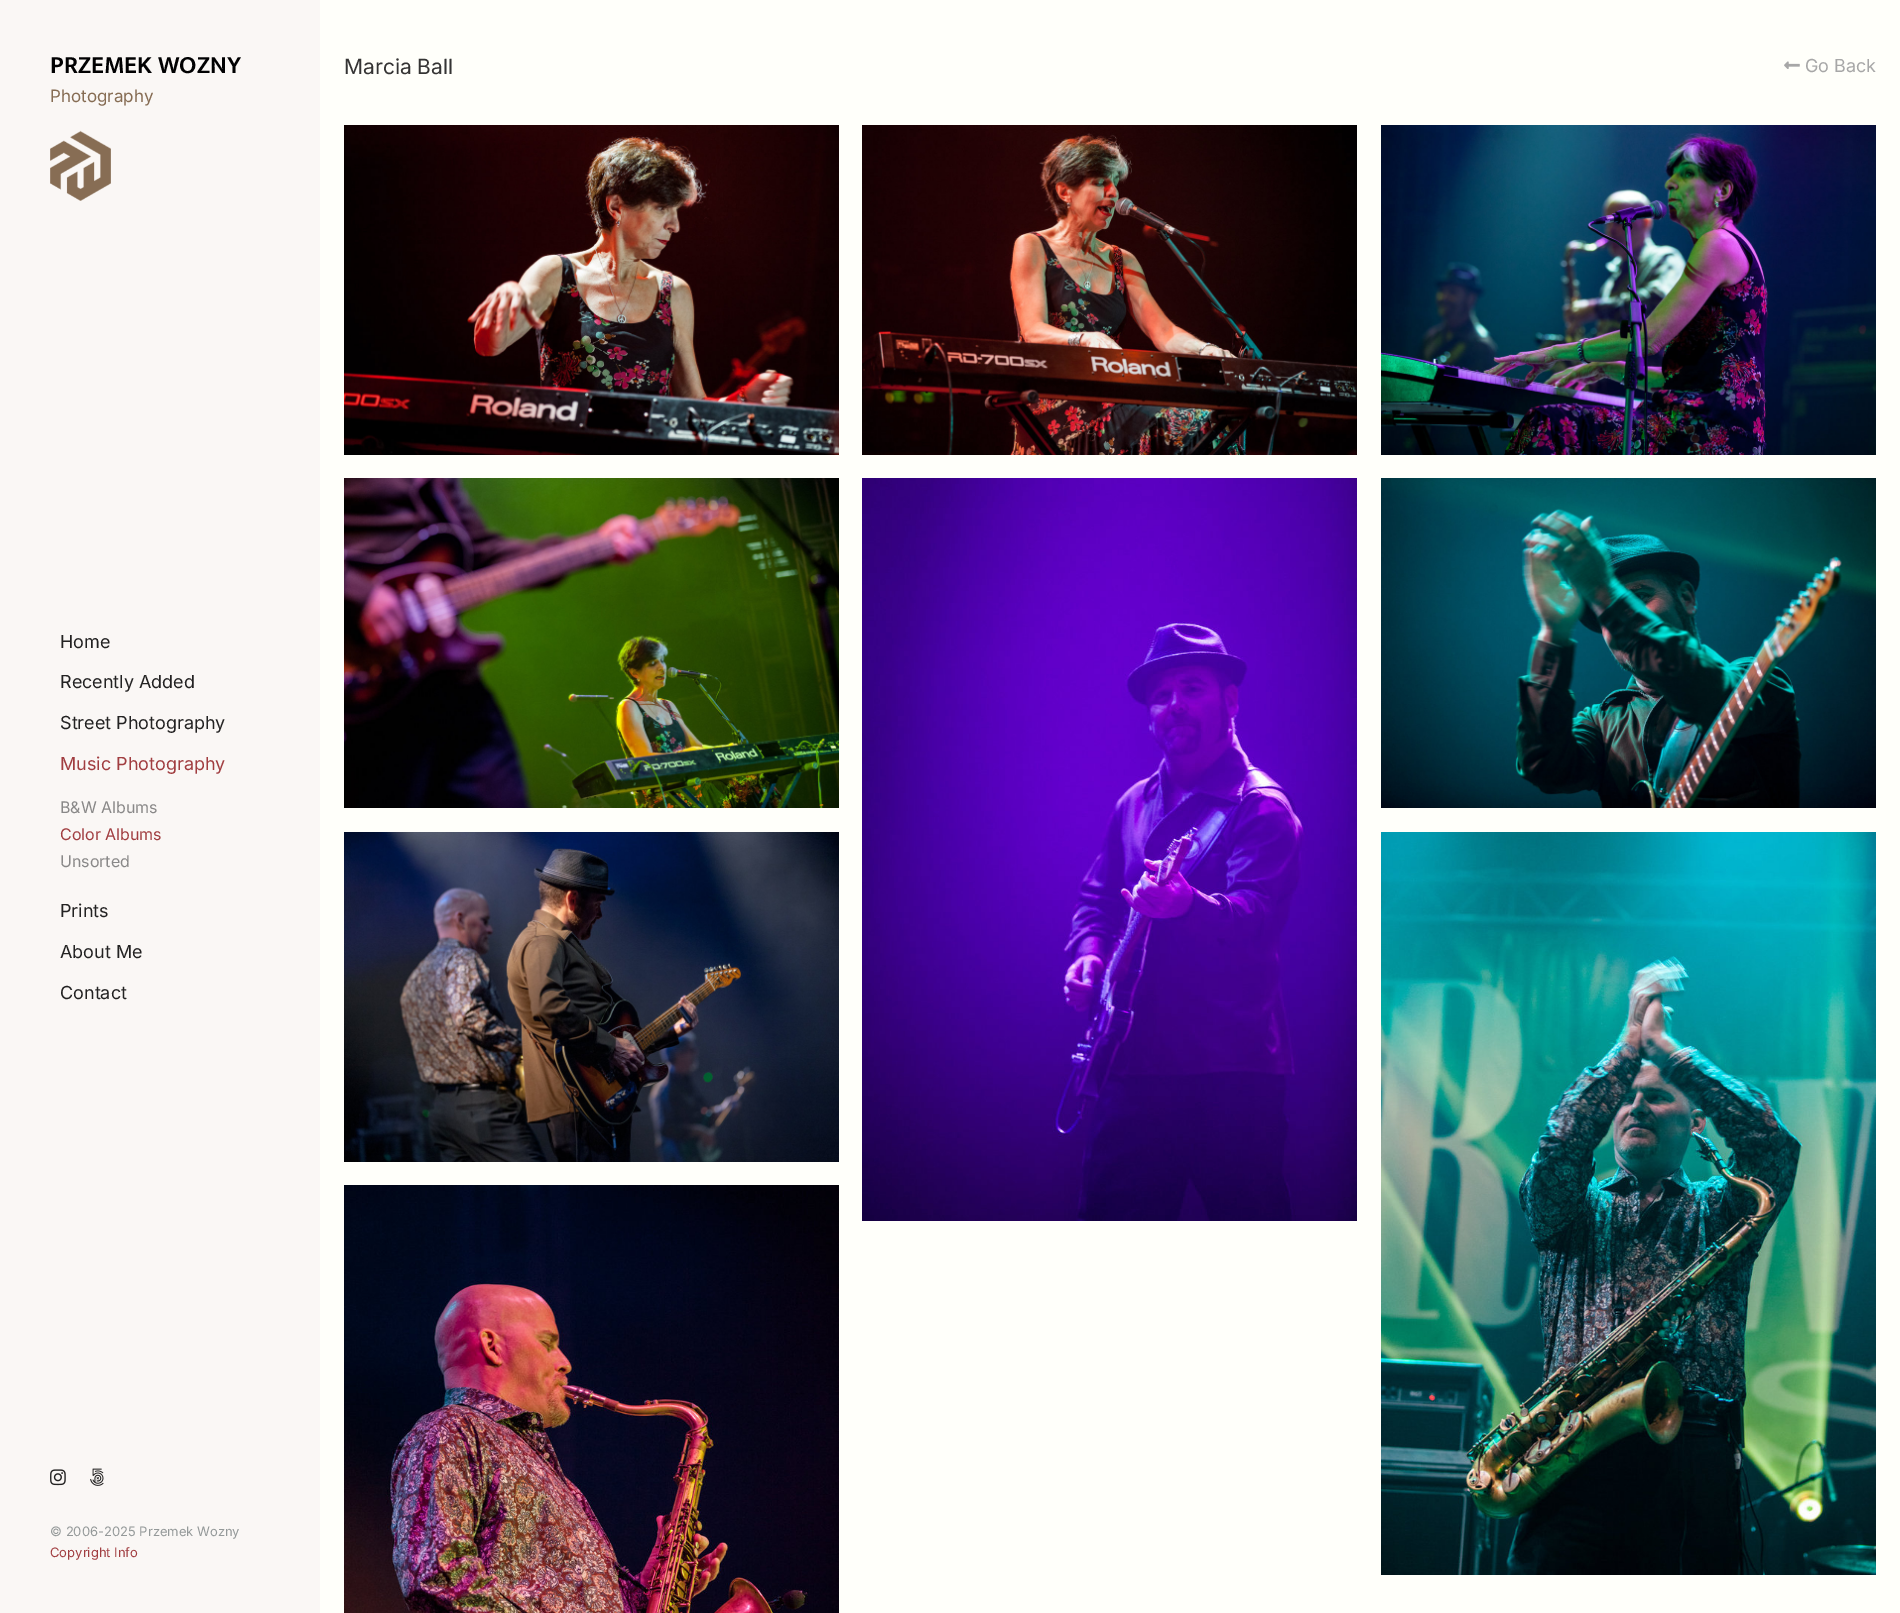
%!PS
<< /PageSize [1900 1613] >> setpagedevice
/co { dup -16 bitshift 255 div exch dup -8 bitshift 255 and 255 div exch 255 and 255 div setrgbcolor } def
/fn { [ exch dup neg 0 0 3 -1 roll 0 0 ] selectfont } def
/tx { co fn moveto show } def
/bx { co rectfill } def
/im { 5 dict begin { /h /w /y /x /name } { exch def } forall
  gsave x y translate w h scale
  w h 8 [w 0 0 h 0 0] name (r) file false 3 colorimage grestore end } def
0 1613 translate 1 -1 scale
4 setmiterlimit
0 0 1900 1613 16#FFFFFA bx
0 0 320 1613 16#FAF7F5 bx
(media/1.raw) 50 130 61 71 im
(media/2.raw) 50 1469 16 17 im
(media/3.raw) 90 1468 14 18 im
(media/4.raw) 1784 61 16 8 im
(media/5.raw) 344 125 495 330 im
(media/6.raw) 862 125 495 330 im
(media/7.raw) 1381 125 495 330 im
(media/8.raw) 344 478 495 330 im
(media/9.raw) 862 478 495 743 im
(media/10.raw) 1381 478 495 330 im
(media/11.raw) 344 832 495 330 im
(media/12.raw) 1381 832 495 743 im
(media/13.raw) 344 1185 495 428 im
(PRZEMEK WOZNY) 50 73 /Mukta-SemiBold 25 16#010102 tx
(Photography) 50 102 /Inter-Regular 17 16#866C53 tx
(Home) 60 648 /Inter-Regular 18 16#232222 tx
(Recently Added) 60 688 /Inter-Regular 18 16#232222 tx
(Street Photography) 60 729 /Inter-Regular 18 16#232222 tx
(Music Photography) 60 770 /Inter-Regular 18 16#A13D40 tx
(B&W Albums) 60 813 /Inter-Regular 16 16#898888 tx
(Color Albums) 60 840 /Inter-Regular 16 16#A13D40 tx
(Unsorted) 60 867 /Inter-Regular 16 16#898888 tx
(Prints) 60 917 /Inter-Regular 18 16#232222 tx
(About Me) 60 958 /Inter-Regular 18 16#232222 tx
(Contact) 60 999 /Inter-Regular 18 16#232222 tx
(© 2006-2025 Przemek Wozny) 50 1536 /Inter-Regular 13 16#949999 tx
(Copyright Info) 50 1557 /Inter-Regular 13 16#A13D40 tx
(Marcia Ball) 344 74 /Inter-Regular 21 16#353434 tx
(Go Back) 1805 72 /Inter-Regular 18 16#A7A7A7 tx
showpage
